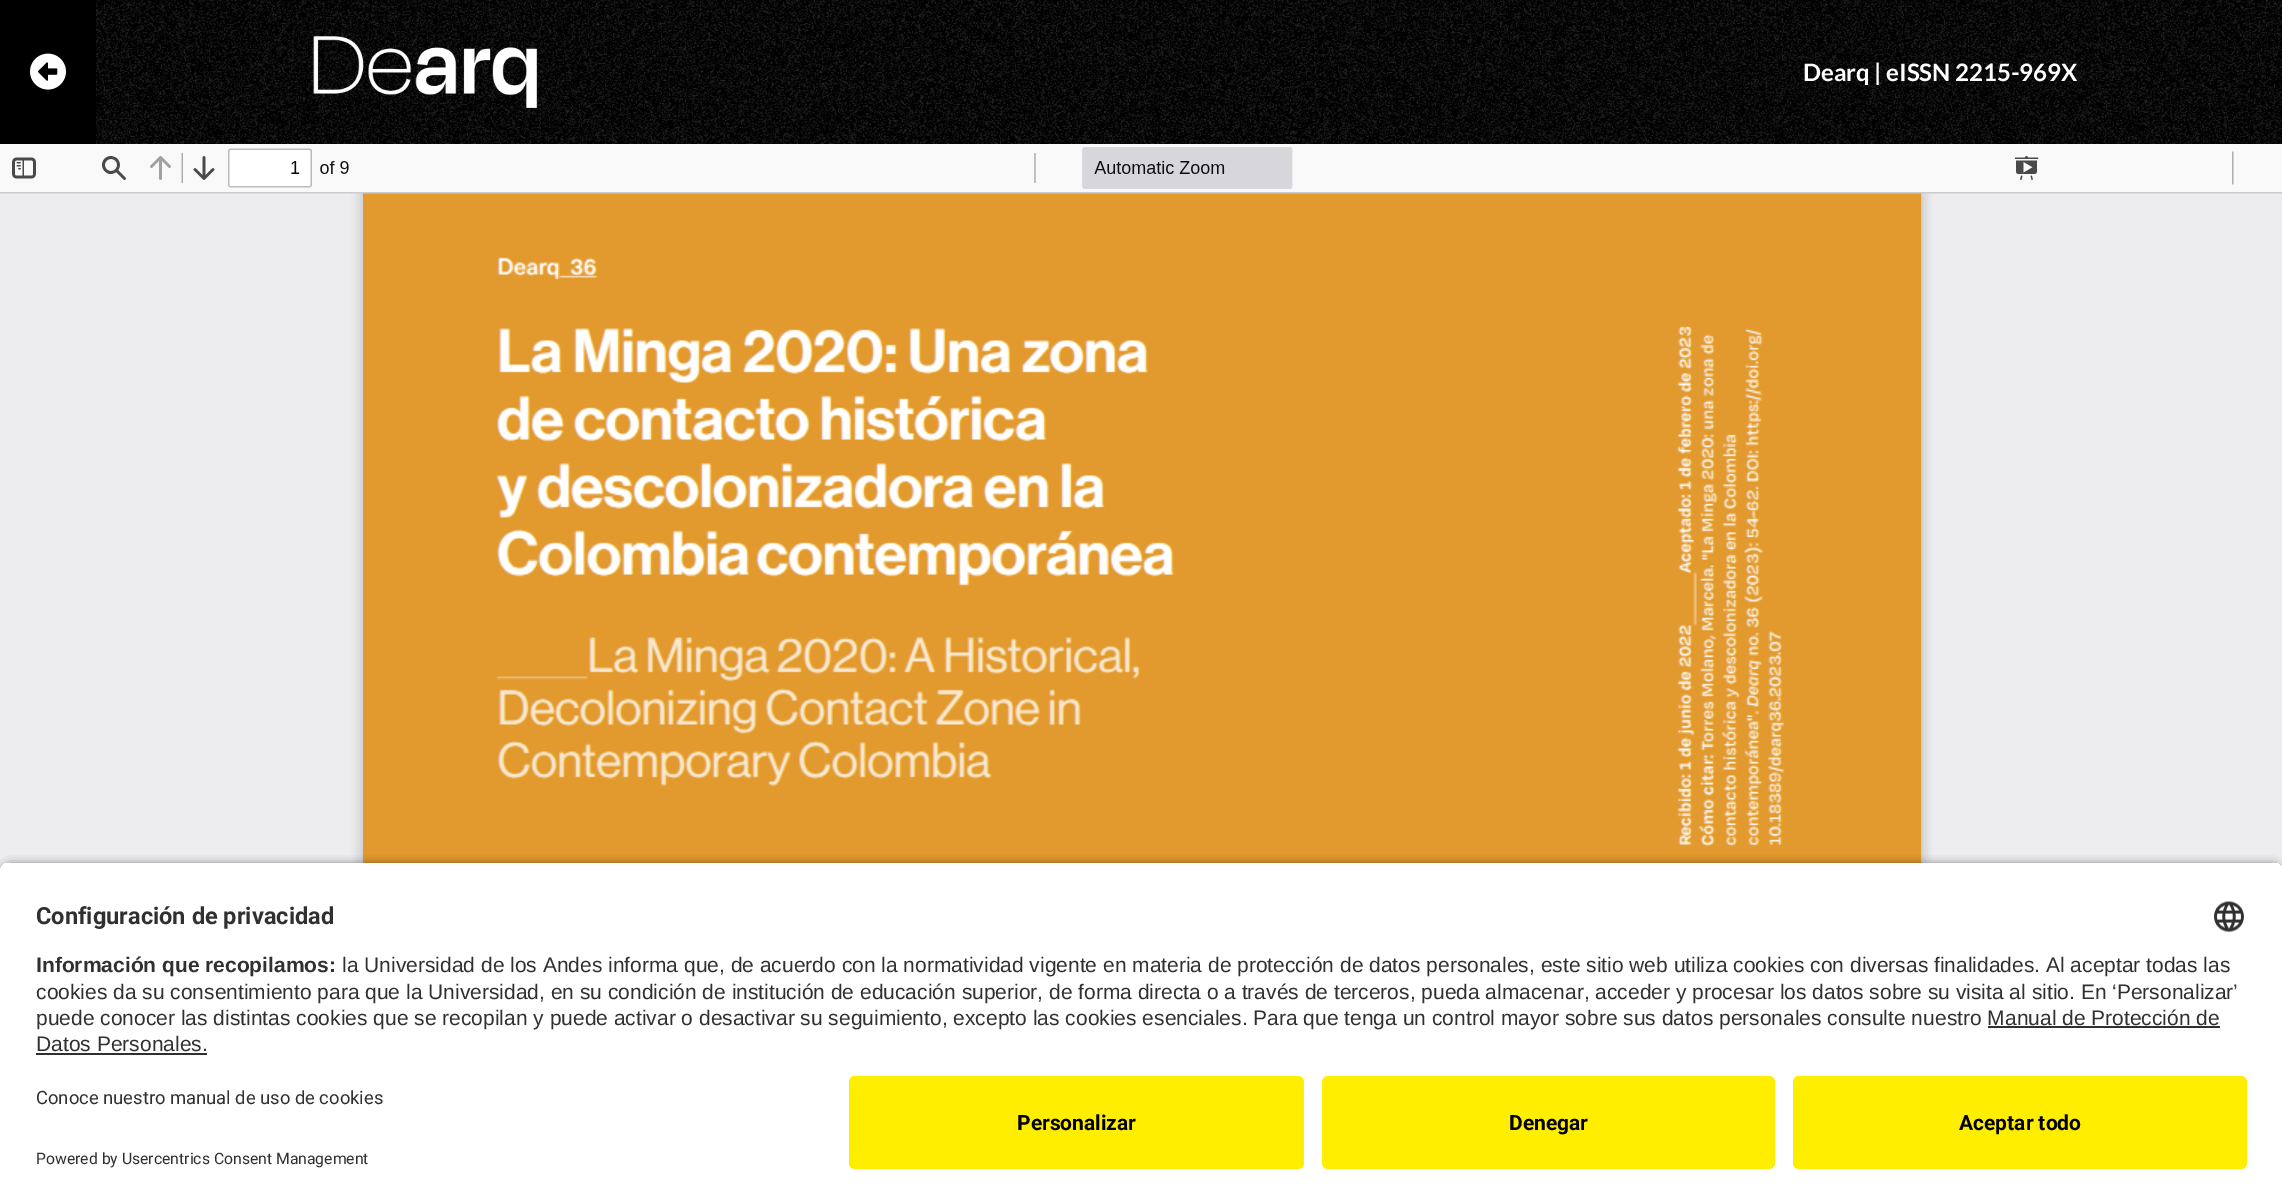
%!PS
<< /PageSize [2282 1204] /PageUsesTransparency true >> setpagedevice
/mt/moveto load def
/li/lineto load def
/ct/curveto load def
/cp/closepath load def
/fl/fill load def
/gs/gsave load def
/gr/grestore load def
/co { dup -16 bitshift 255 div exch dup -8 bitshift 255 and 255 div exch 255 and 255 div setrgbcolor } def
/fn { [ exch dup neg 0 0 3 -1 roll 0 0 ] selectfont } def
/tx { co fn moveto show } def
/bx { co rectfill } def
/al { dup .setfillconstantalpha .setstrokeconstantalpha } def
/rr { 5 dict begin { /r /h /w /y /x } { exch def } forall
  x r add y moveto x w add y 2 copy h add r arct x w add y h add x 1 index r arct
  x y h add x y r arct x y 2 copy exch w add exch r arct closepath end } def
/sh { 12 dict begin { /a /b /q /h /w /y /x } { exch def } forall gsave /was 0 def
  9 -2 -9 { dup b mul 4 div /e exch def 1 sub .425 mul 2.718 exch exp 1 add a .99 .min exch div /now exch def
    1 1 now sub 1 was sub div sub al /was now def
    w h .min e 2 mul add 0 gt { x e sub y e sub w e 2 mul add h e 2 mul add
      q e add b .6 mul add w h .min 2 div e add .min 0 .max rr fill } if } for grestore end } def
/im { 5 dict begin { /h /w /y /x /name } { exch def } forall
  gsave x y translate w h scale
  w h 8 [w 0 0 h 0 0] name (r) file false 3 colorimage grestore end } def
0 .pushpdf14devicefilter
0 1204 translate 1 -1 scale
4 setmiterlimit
0 0 2282 1204 16#FFFFFF bx
(media/1.raw) 96 0 2186 144 im
0 0 96 144 16#000000 bx
(media/2.raw) 30 53 36 37 im
(media/3.raw) 313 36 224 72 im
(media/4.raw) 0 144 2282 729 im
0 866 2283 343 12 5 .8 sh
gs
12 861 mt 2271 861 li 2277.5 861 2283 866.5 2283 873 ct 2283 1064 li 0 1064 li 0 873 li 0 866.5 5.5 861 12 861 ct cp clip newpath
0 863 2282 201 16#FFFFFF bx
gr
(media/5.raw) 2214 901 30 31 im
1988 1026 232 2 16#303030 bx
36 1053 171 2 16#303030 bx
0 1064 2282 140 16#FFFFFF bx
16#FFEE00 co
849 1076 455 93 6 rr fl
1322 1076 453 93 6 rr fl
1793 1076 454 93 6 rr fl
(Dearq | eISSN 2215-969X) 1803 81 /Lato-Bold 24 16#FFFFFF tx
(Configuración de privacidad) 36 924 /Roboto-Bold 23.6 16#303030 tx
(Información que recopilamos:) 36 972 /LiberationSans-Bold 21 16#303030 tx
(la Universidad de los Andes informa que, de acuerdo con la normatividad vigente en materia de protección de datos personales, este sitio web utiliza cookies con diversas finalidades. Al aceptar todas las) 342 972 /LiberationSans-Regular 21 16#303030 tx
(cookies da su consentimiento para que la Universidad, en su condición de institución de educación superior, de forma directa o a través de terceros, pueda almacenar, acceder y procesar los datos sobre su visita al sitio. En ‘Personalizar’) 36 999 /LiberationSans-Regular 21 16#303030 tx
(puede conocer las distintas cookies que se recopilan y puede activar o desactivar su seguimiento, excepto las cookies esenciales. Para que tenga un control mayor sobre sus datos personales consulte nuestro Manual de Protección de) 36 1025 /LiberationSans-Regular 21 16#303030 tx
(Datos Personales.) 36 1051 /LiberationSans-Regular 21 16#303030 tx
(Conoce nuestro manual de uso de cookies) 36 1104 /Roboto-Regular 18.4 16#303030 tx
(Powered by Usercentrics Consent Management) 36 1164 /Roboto-Regular 15.75 16#303030 tx
(Personalizar) 1017 1130 /Roboto-Bold 21 16#000000 tx
(Denegar) 1509 1130 /Roboto-Bold 21 16#000000 tx
(Aceptar todo) 1959 1130 /Roboto-Bold 21 16#000000 tx
.poppdf14devicefilter showpage
